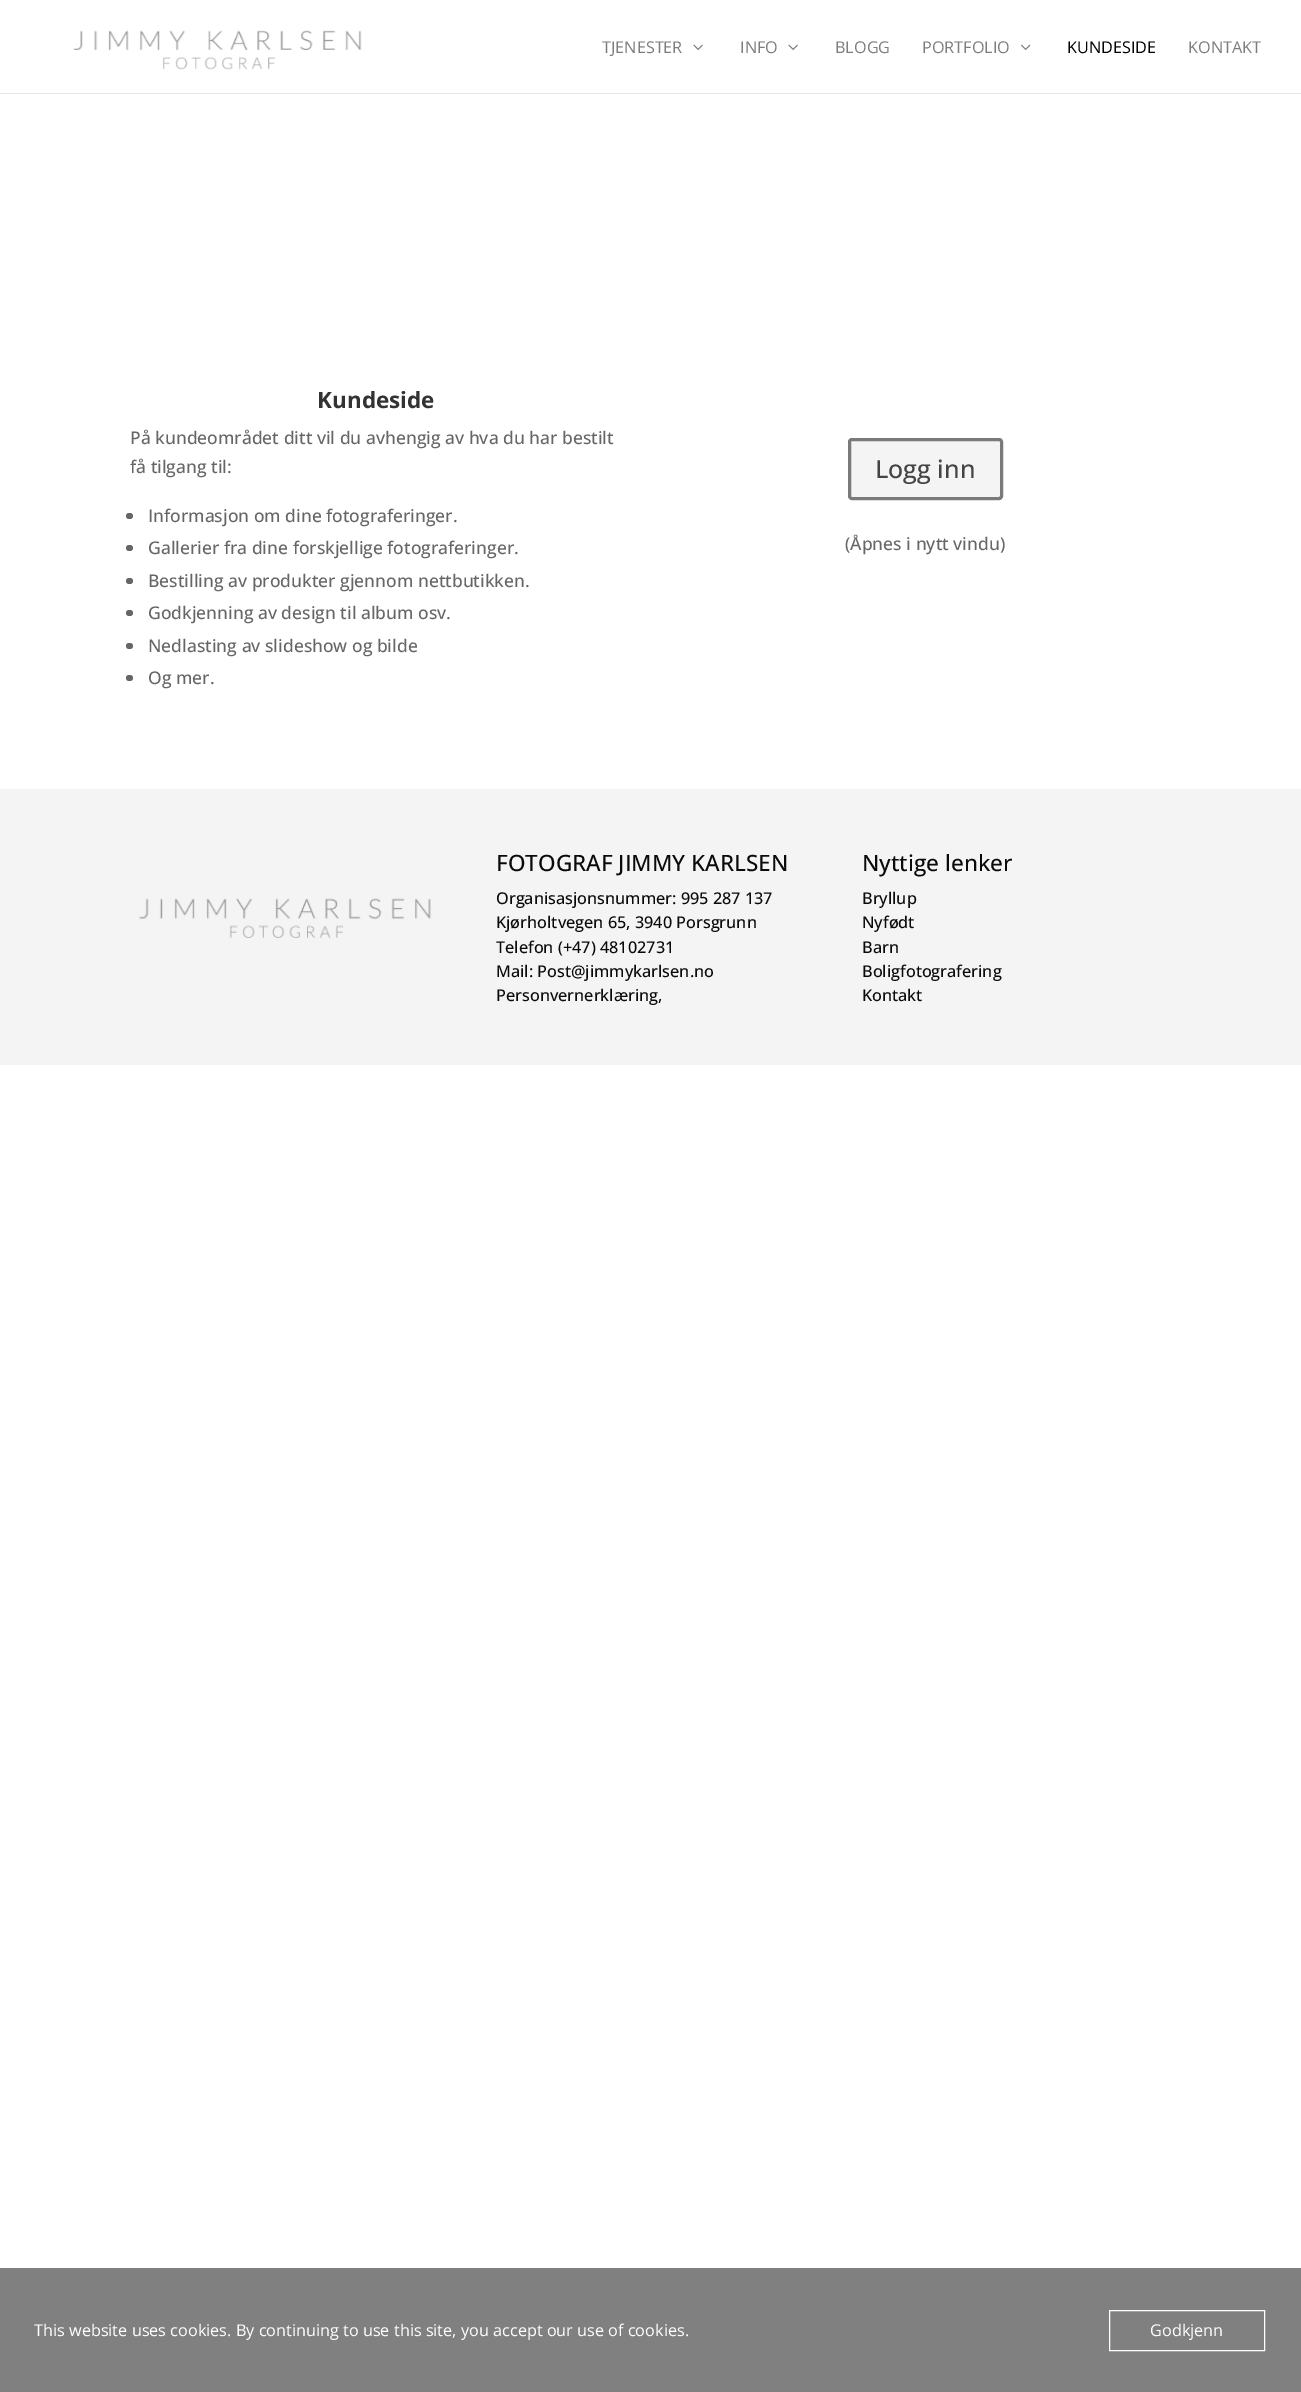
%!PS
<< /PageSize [1301 2392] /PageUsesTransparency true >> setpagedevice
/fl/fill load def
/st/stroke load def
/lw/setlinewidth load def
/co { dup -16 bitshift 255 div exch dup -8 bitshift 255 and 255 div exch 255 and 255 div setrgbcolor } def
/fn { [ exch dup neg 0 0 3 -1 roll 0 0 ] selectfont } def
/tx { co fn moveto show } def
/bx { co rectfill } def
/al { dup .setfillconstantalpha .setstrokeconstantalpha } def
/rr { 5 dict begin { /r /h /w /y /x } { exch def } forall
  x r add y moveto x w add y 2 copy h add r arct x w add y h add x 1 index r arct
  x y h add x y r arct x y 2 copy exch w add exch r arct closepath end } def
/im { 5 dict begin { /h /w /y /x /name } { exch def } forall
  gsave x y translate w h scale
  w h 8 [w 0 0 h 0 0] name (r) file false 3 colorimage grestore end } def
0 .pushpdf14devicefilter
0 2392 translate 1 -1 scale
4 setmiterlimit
0 0 1301 2392 16#FFFFFF bx
0 93 1301 1 16#E6E6E6 bx
(media/1.raw) 73 30 289 40 im
(media/2.raw) 693 44 10 6 im
(media/2.raw) 788 44 10 6 im
(media/3.raw) 1021 44 10 6 im
16#666666 co
126 513 7 6 3 rr fl
126 545 7 6 3 rr fl
126 578 7 6 3 rr fl
126 610 7 6 3 rr fl
126 643 7 6 3 rr fl
126 675 7 6 3 rr fl
16#F4F4F4 co
848 438 155 62 4 rr fl
0.5 al
16#000000 co
3 lw
849.5 439.5 152 59 2.5 rr st
1 al
0 789 1301 276 16#F4F4F4 bx
(media/4.raw) 139 898 292 40 im
0 2268 1301 124 16#808080 bx
16#FFFFFF co
1 lw
1109.5 2310.5 155 40 rectstroke
(TJENESTER) 602 53 /OpenSans-Regular 16.25 16#7D7D7D tx
(INFO) 740 53 /OpenSans-Regular 16.25 16#7D7D7D tx
(BLOGG) 835 53 /OpenSans-Regular 16.25 16#7D7D7D tx
(PORTFOLIO) 922 53 /OpenSans-Regular 16.25 16#7D7D7D tx
(KUNDESIDE) 1067 53 /OpenSans-Regular 16.25 16#000000 tx
(KONTAKT) 1188 53 /OpenSans-Regular 16.25 16#7D7D7D tx
(Kundeside) 317 408 /OpenSans-Bold 22.5 16#333333 tx
(På kundeområdet ditt vil du avhengig av hva du har bestilt) 130 444 /OpenSans-Medium 17.5 16#666666 tx
(få tilgang til:) 130 473 /OpenSans-Medium 17.5 16#666666 tx
(Informasjon om dine fotograferinger.) 148 522 /OpenSans-Medium 17.5 16#666666 tx
(Gallerier fra dine forskjellige fotograferinger.) 148 554 /OpenSans-Medium 17.5 16#666666 tx
(Bestilling av produkter gjennom nettbutikken.) 148 587 /OpenSans-Medium 17.5 16#666666 tx
(Godkjenning av design til album osv.) 148 619 /OpenSans-Medium 17.5 16#666666 tx
(Nedlasting av slideshow og bilde) 148 652 /OpenSans-Medium 17.5 16#666666 tx
(Og mer.) 148 684 /OpenSans-Medium 17.5 16#666666 tx
(Logg inn) 875 478 /OpenSans-Medium 25 16#444444 tx
(\(Åpnes i nytt vindu\)) 845 550 /OpenSans-Medium 17.5 16#666666 tx
(FOTOGRAF JIMMY KARLSEN) 496 871 /OpenSans-Medium 22.5 16#0A0A0A tx
(Organisasjonsnummer: 995 287 137) 496 904 /OpenSans-Medium 16.25 16#0A0A0A tx
(Kjørholtvegen 65, 3940 Porsgrunn) 496 928 /OpenSans-Medium 16.25 16#0A0A0A tx
(Telefon \(+47\) 48102731) 496 953 /OpenSans-Medium 16.25 16#0A0A0A tx
(Mail: Post@jimmykarlsen.no) 496 977 /OpenSans-Medium 16.25 16#0A0A0A tx
(Personvernerklæring,) 496 1001 /OpenSans-Medium 16.25 16#0A0A0A tx
(Nyttige lenker) 862 871 /OpenSans-Medium 22.5 16#0A0A0A tx
(Bryllup) 862 904 /OpenSans-Medium 16.25 16#0A0A0A tx
(Nyfødt) 862 928 /OpenSans-Medium 16.25 16#0A0A0A tx
(Barn) 862 953 /OpenSans-Medium 16.25 16#0A0A0A tx
(Boligfotografering) 862 977 /OpenSans-Medium 16.25 16#0A0A0A tx
(Kontakt) 862 1001 /OpenSans-Medium 16.25 16#0A0A0A tx
(This website uses cookies. By continuing to use this site, you accept our use of cookies.) 34 2336 /OpenSans-Regular 16.25 16#FFFFFF tx
(Godkjenn) 1150 2336 /OpenSans-Regular 16.25 16#FFFFFF tx
.poppdf14devicefilter showpage
